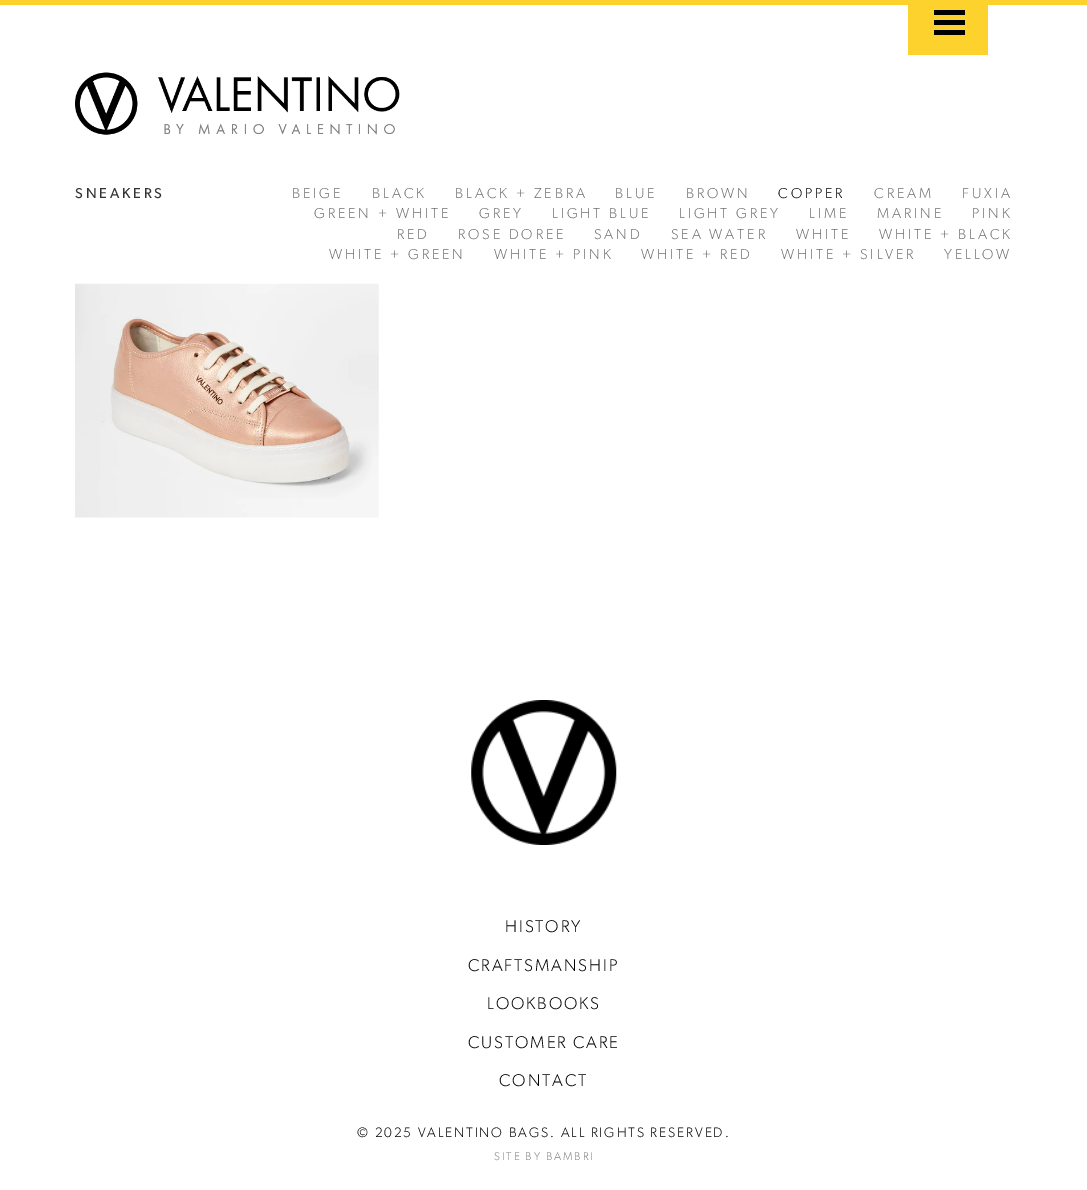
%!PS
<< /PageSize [1087 1190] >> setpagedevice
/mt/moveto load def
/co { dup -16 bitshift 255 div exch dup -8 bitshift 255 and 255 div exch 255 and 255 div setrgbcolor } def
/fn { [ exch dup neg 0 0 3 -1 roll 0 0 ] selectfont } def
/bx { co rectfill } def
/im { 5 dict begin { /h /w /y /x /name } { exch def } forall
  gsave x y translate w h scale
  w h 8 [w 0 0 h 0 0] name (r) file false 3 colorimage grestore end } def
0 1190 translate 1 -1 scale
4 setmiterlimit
0 0 1087 1190 16#FFFFFF bx
0 0 1087 5 16#FED22C bx
908 5 80 50 16#FED22C bx
934 20 31 5 16#000000 bx
934 10 31 5 16#000000 bx
934 30 31 5 16#000000 bx
(media/1.raw) 75 72 325 63 im
(media/2.raw) 75 283 304 235 im
(media/3.raw) 471 700 146 145 im
/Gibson-Regular 14.4 fn
16#333333 co
75 198 mt 2.9 0 (SNEAKERS) ashow
/Gibson-Light 14.4 fn
16#707070 co
292 198 mt 2.9 0 (BEIGE) ashow
372 198 mt 2.9 0 (BLACK) ashow
455 198 mt 2.9 0 (BLACK + ZEBRA) ashow
615 198 mt 2.9 0 (BLUE) ashow
686 198 mt 2.9 0 (BROWN) ashow
16#000000 co
778 198 mt 2.9 0 (COPPER) ashow
16#707070 co
874 198 mt 2.9 0 (CREAM) ashow
962 198 mt 2.9 0 (FUXIA) ashow
314 218 mt 2.9 0 (GREEN + WHITE) ashow
479 218 mt 2.9 0 (GREY) ashow
552 218 mt 2.9 0 (LIGHT BLUE) ashow
679 218 mt 2.9 0 (LIGHT GREY) ashow
809 218 mt 2.9 0 (LIME) ashow
877 218 mt 2.9 0 (MARINE) ashow
972 218 mt 2.9 0 (PINK) ashow
397 239 mt 2.9 0 (RED) ashow
458 239 mt 2.9 0 (ROSE DOREE) ashow
594 239 mt 2.9 0 (SAND) ashow
671 239 mt 2.9 0 (SEA WATER) ashow
796 239 mt 2.9 0 (WHITE) ashow
879 239 mt 2.9 0 (WHITE + BLACK) ashow
329 259 mt 2.9 0 (WHITE + GREEN) ashow
494 259 mt 2.9 0 (WHITE + PINK) ashow
641 259 mt 2.9 0 (WHITE + RED) ashow
781 259 mt 2.9 0 (WHITE + SILVER) ashow
944 259 mt 2.9 0 (YELLOW) ashow
/Gibson-Light 17 fn
16#000000 co
505 932 mt 1.9 0 (HISTORY) ashow
468 971 mt 1.9 0 (CRAFTSMANSHIP) ashow
487 1009 mt 1.9 0 (LOOKBOOKS) ashow
468 1048 mt 1.9 0 (CUSTOMER CARE) ashow
499 1086 mt 1.9 0 (CONTACT) ashow
/Gibson-Light 13.75 fn
357 1137 mt 1.9 0 (© 2025 VALENTINO BAGS. ALL RIGHTS RESERVED.) ashow
/Gibson-Light 11.25 fn
16#808080 co
494 1160 mt 1.9 0 (SITE BY BAMBRI) ashow
showpage
